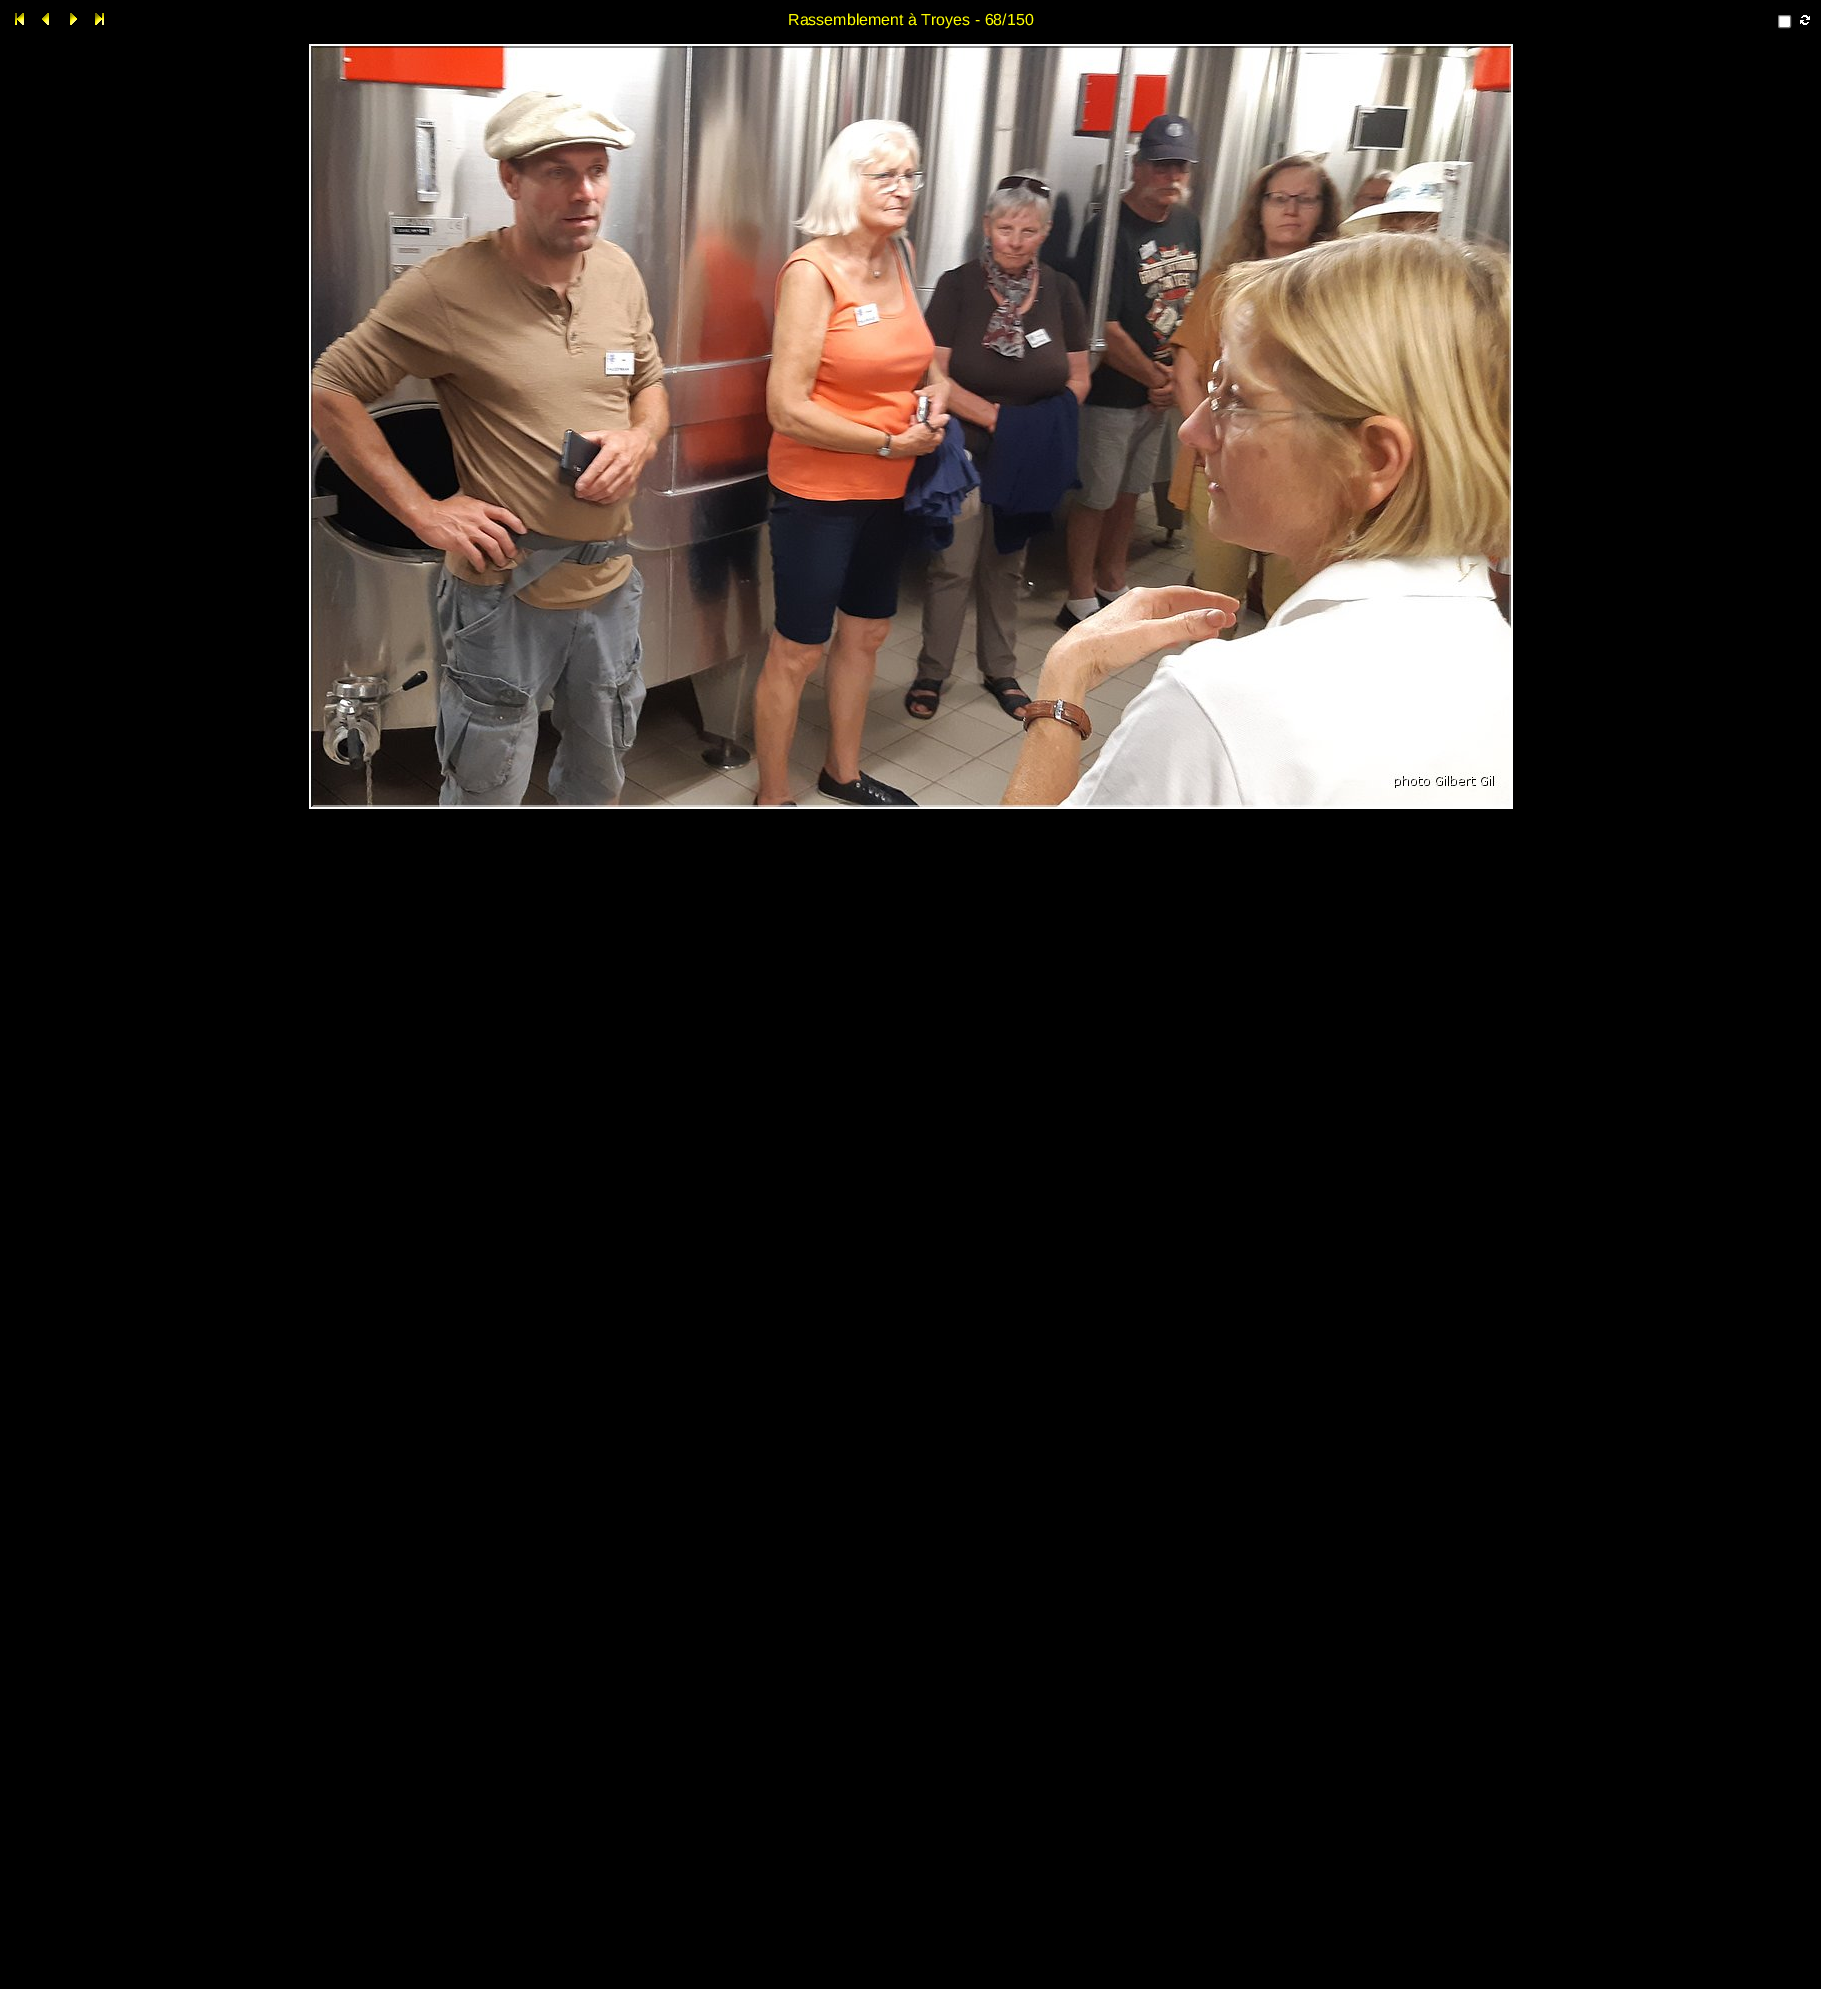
%!PS
<< /PageSize [1821 1989] >> setpagedevice
/fl/fill load def
/st/stroke load def
/gs/gsave load def
/gr/grestore load def
/co { dup -16 bitshift 255 div exch dup -8 bitshift 255 and 255 div exch 255 and 255 div setrgbcolor } def
/fn { [ exch dup neg 0 0 3 -1 roll 0 0 ] selectfont } def
/tx { co fn moveto show } def
/bx { co rectfill } def
/rr { 5 dict begin { /r /h /w /y /x } { exch def } forall
  x r add y moveto x w add y 2 copy h add r arct x w add y h add x 1 index r arct
  x y h add x y r arct x y 2 copy exch w add exch r arct closepath end } def
/im { 5 dict begin { /h /w /y /x /name } { exch def } forall
  gsave x y translate w h scale
  w h 8 [w 0 0 h 0 0] name (r) file false 3 colorimage grestore end } def
0 1989 translate 1 -1 scale
4 setmiterlimit
0 0 1821 1989 16#000000 bx
(media/1.raw) 15 13 9 12 im
(media/2.raw) 42 13 7 12 im
(media/3.raw) 70 13 7 12 im
(media/4.raw) 95 13 9 12 im
16#FFFFFF co
1778.5 15.5 12 12 1.5 rr gs fl gr
16#767676 co
st
(media/5.raw) 1800 15 10 10 im
(media/6.raw) 309 44 1204 765 im
(Rassemblement à Troyes - 68/150) 788 25 /LiberationSans-Regular 16 16#FFFF00 tx
showpage
